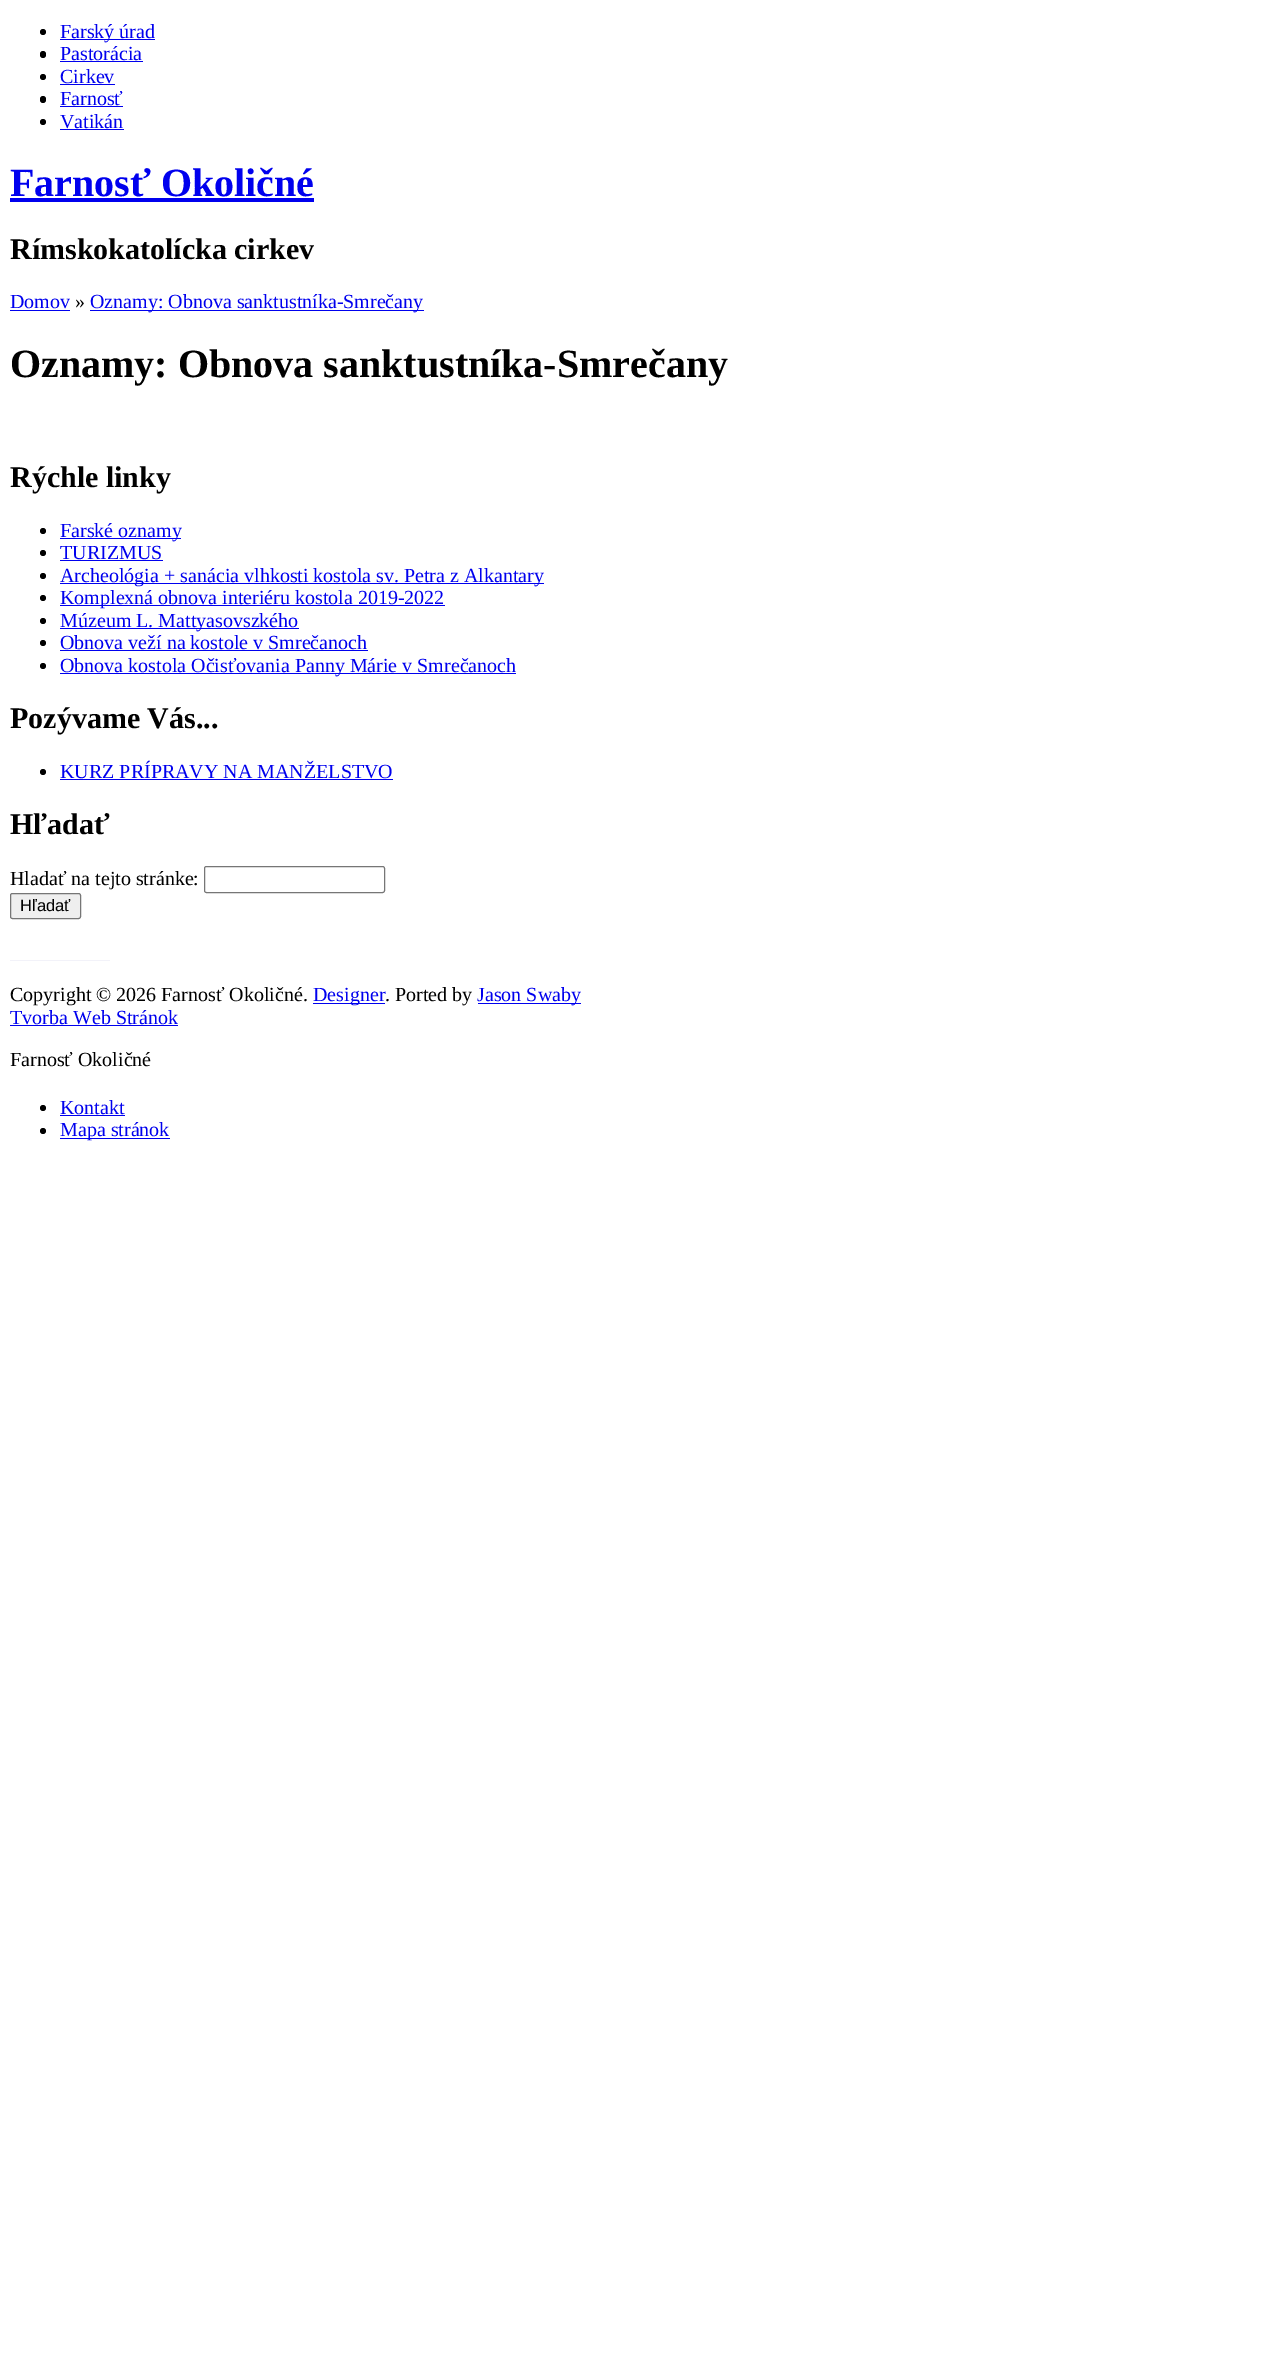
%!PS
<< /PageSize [1287 2375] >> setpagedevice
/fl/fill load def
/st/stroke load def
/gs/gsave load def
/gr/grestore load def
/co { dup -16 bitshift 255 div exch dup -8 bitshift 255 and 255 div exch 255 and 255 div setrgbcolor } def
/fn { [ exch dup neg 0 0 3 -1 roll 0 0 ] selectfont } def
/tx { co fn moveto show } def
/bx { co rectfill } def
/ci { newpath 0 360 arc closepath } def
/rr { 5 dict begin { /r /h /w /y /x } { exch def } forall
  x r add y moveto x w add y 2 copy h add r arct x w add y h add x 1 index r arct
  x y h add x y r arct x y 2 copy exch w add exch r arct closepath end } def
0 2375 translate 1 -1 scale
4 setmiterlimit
0 0 1287 2375 16#FFFFFF bx
16#000000 co
43 32 3 ci fl
60 39 95 1 16#0000EE bx
16#000000 co
40 51 6 7 3 rr fl
60 61 83 1 16#0000EE bx
16#000000 co
43 77 3 ci fl
60 84 55 1 16#0000EE bx
16#000000 co
40 96 6 7 3 rr fl
60 106 63 1 16#0000EE bx
16#000000 co
43 122 3 ci fl
60 129 64 1 16#0000EE bx
10 198 304 4 16#0000EE bx
10 310 60 1 16#0000EE bx
90 310 334 1 16#0000EE bx
16#000000 co
43 531 3 ci fl
60 538 121 1 16#0000EE bx
16#000000 co
43 553 3 ci fl
60 560 103 1 16#0000EE bx
16#000000 co
43 576 3 ci fl
60 583 484 1 16#0000EE bx
16#000000 co
43 598 3 ci fl
60 605 385 1 16#0000EE bx
16#000000 co
43 621 3 ci fl
60 628 239 1 16#0000EE bx
16#000000 co
43 643 3 ci fl
60 650 308 1 16#0000EE bx
16#000000 co
43 666 3 ci fl
60 673 456 1 16#0000EE bx
16#000000 co
43 772 3 ci fl
60 779 333 1 16#0000EE bx
16#767676 co
204.5 866.5 180 26 2 rr st
16#EFEFEF co
10.5 893.5 70 25 2 rr gs fl gr
16#767676 co
st
10 960 100 1 16#F2F2F9 bx
313 1003 72 1 16#0000EE bx
478 1003 103 1 16#0000EE bx
10 1025 168 1 16#0000EE bx
16#000000 co
43 1108 3 ci fl
60 1115 65 1 16#0000EE bx
16#000000 co
43 1131 3 ci fl
60 1138 110 1 16#0000EE bx
(Farský úrad) 60 38 /LiberationSerif-Regular 20 16#0000EE tx
(Pastorácia) 60 60 /LiberationSerif-Regular 20 16#0000EE tx
(Cirkev) 60 83 /LiberationSerif-Regular 20 16#0000EE tx
(Farnosť) 60 105 /LiberationSerif-Regular 20 16#0000EE tx
(Vatikán) 60 128 /LiberationSerif-Regular 20 16#0000EE tx
(Farnosť Okoličné) 10 196 /LiberationSerif-Bold 40 16#0000EE tx
(Rímskokatolícka cirkev) 10 259 /LiberationSerif-Bold 30 16#000000 tx
(Domov) 10 308 /LiberationSerif-Regular 20 16#0000EE tx
(») 75 308 /LiberationSerif-Regular 20 16#000000 tx
(Oznamy: Obnova sanktustníka-Smrečany) 90 308 /LiberationSerif-Regular 20 16#0000EE tx
(Oznamy: Obnova sanktustníka-Smrečany) 10 377 /LiberationSerif-Bold 40 16#000000 tx
(Rýchle linky) 10 487 /LiberationSerif-Bold 30 16#000000 tx
(Farské oznamy) 60 537 /LiberationSerif-Regular 20 16#0000EE tx
(TURIZMUS) 60 559 /LiberationSerif-Regular 20 16#0000EE tx
(Archeológia + sanácia vlhkosti kostola sv. Petra z Alkantary) 60 582 /LiberationSerif-Regular 20 16#0000EE tx
(Komplexná obnova interiéru kostola 2019-2022) 60 604 /LiberationSerif-Regular 20 16#0000EE tx
(Múzeum L. Mattyasovszkého) 60 627 /LiberationSerif-Regular 20 16#0000EE tx
(Obnova veží na kostole v Smrečanoch) 60 649 /LiberationSerif-Regular 20 16#0000EE tx
(Obnova kostola Očisťovania Panny Márie v Smrečanoch) 60 672 /LiberationSerif-Regular 20 16#0000EE tx
(Pozývame Vás...) 10 728 /LiberationSerif-Bold 30 16#000000 tx
(KURZ PRÍPRAVY NA MANŽELSTVO) 60 778 /LiberationSerif-Regular 20 16#0000EE tx
(Hľadať) 10 834 /LiberationSerif-Bold 30 16#000000 tx
(Hladať na tejto stránke:) 10 885 /LiberationSerif-Regular 20 16#000000 tx
(Hľadať) 20 911 /LiberationSans-Regular 16.5 16#000000 tx
(Copyright © 2026 Farnosť Okoličné.) 10 1001 /LiberationSerif-Regular 20 16#000000 tx
(Designer) 313 1001 /LiberationSerif-Regular 20 16#0000EE tx
(. Ported by) 385 1001 /LiberationSerif-Regular 20 16#000000 tx
(Jason Swaby) 477 1001 /LiberationSerif-Regular 20 16#0000EE tx
(Tvorba Web Stránok) 10 1024 /LiberationSerif-Regular 20 16#0000EE tx
(Farnosť Okoličné) 10 1066 /LiberationSerif-Regular 20 16#000000 tx
(Kontakt) 60 1114 /LiberationSerif-Regular 20 16#0000EE tx
(Mapa stránok) 60 1136 /LiberationSerif-Regular 20 16#0000EE tx
showpage
